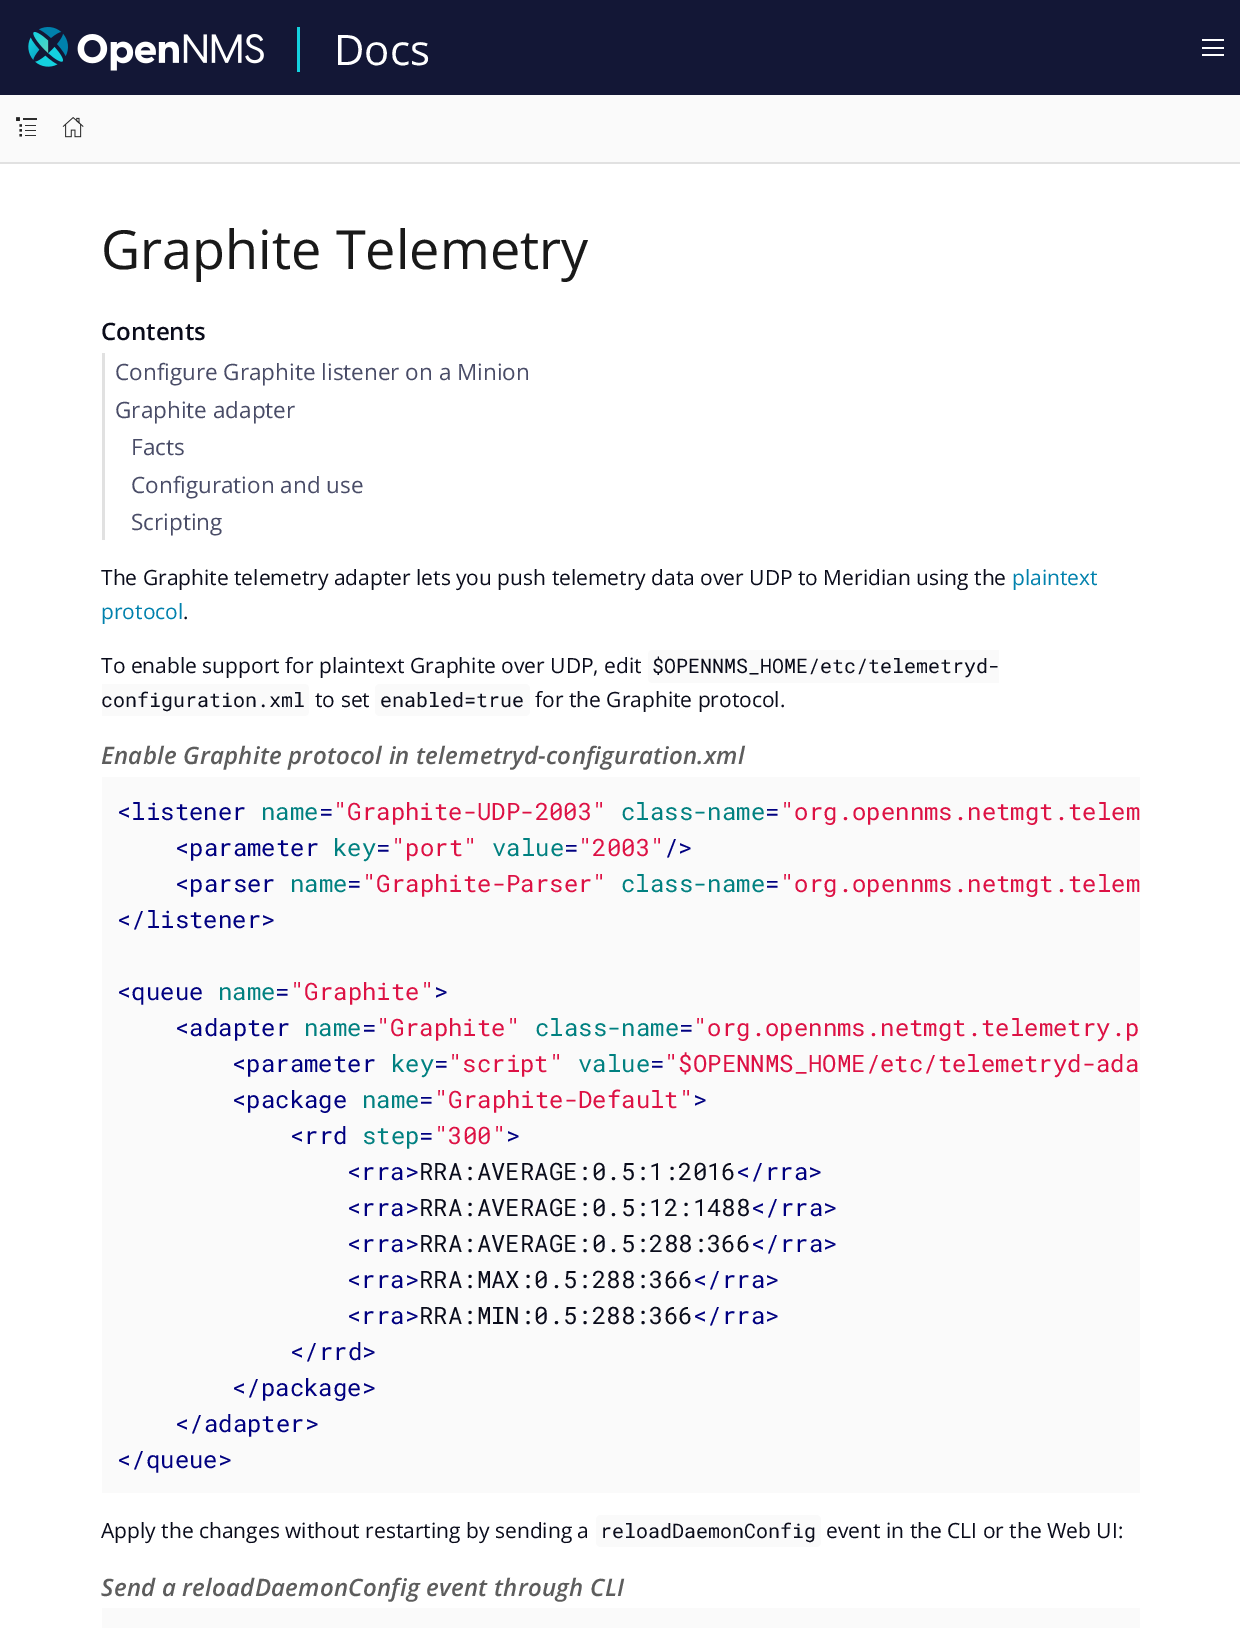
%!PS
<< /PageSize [1240 1628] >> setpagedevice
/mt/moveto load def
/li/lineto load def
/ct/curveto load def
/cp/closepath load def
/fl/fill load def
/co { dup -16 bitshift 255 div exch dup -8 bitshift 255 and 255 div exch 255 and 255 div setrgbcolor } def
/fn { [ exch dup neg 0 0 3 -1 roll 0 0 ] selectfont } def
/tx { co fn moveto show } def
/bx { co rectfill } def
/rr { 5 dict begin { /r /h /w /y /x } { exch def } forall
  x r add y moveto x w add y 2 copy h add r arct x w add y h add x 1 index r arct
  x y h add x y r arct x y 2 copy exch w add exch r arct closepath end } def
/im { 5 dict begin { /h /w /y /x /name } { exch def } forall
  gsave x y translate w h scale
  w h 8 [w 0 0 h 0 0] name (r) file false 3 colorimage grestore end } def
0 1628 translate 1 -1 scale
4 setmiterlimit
0 0 1240 1628 16#FFFFFF bx
0 0 1240 95 16#131736 bx
(media/1.raw) 28 27 236 44 im
297 27 3 45 16#14D1DF bx
1202 39 22 2 16#FFFFFF bx
1202 47 22 2 16#FFFFFF bx
1202 54 22 2 16#FFFFFF bx
16#E1E1E1 co
0 162 mt 0 164 li 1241 164 li 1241 96 li 1240 96 li 1240 162 li cp fl
0 95 1240 67 16#FAFAFA bx
(media/2.raw) 16 117 21 20 im
(media/3.raw) 62 117 22 21 im
102 353 3 187 16#E1E1E1 bx
16#FAFAFA co
653 650 mt 999 650 li 999 683 li 653 683 li 650 683 648 681 648 678 ct 648 655 li 648 652 650 650 653 650 ct cp fl
102 684 mt 304 684 li 307 684 309 686 309 689 ct 309 711 li 309 714 307 716 304 716 ct 102 716 li cp fl
375 684 155 32 5 rr fl
102 777 1038 716 16#FAFAFA bx
596 1515 225 32 5 rr fl
102 1608 1038 20 16#FAFAFA bx
(Docs) 334 65 /OpenSans-Regular 42 16#FFFFFF tx
(Graphite Telemetry) 101 269 /OpenSans-Regular 54 16#191919 tx
(Contents) 101 340 /OpenSans-SemiBold 24 16#0A0C1B tx
(Configure Graphite listener on a Minion) 115 380 /OpenSans-Regular 22.5 16#494C67 tx
(Graphite adapter) 115 418 /OpenSans-Regular 22.5 16#494C67 tx
(Facts) 131 455 /OpenSans-Regular 22.5 16#494C67 tx
(Configuration and use) 131 493 /OpenSans-Regular 22.5 16#494C67 tx
(Scripting) 131 530 /OpenSans-Regular 22.5 16#494C67 tx
(The Graphite telemetry adapter lets you push telemetry data over UDP to Meridian using the) 101 585 /OpenSans-Regular 21 16#0A0C1B tx
(plaintext) 1012 585 /OpenSans-Regular 21 16#0081AD tx
(protocol) 101 619 /OpenSans-Regular 21 16#0081AD tx
(.) 183 619 /OpenSans-Regular 21 16#0A0C1B tx
(To enable support for plaintext Graphite over UDP, edit) 101 673 /OpenSans-Regular 21 16#0A0C1B tx
($OPENNMS_HOME/etc/telemetryd-) 652 673 /RobotoMono-Regular 20 16#0A0C1B tx
(configuration.xml) 101 707 /RobotoMono-Regular 20 16#0A0C1B tx
(to set) 315 707 /OpenSans-Regular 21 16#0A0C1B tx
(enabled=true) 380 707 /RobotoMono-Regular 20 16#0A0C1B tx
(for the Graphite protocol.) 535 707 /OpenSans-Regular 21 16#0A0C1B tx
/OpenSans-SemiBoldItalic 24 fn
16#5D5D5D co
101 764 mt .25 0 (Enable Graphite protocol in telemetryd-configuration.xml) ashow
(<listener) 117 820 /RobotoMono-Regular 24 16#000080 tx
(name) 261 820 /RobotoMono-Regular 24 16#008080 tx
(=) 319 820 /RobotoMono-Regular 24 16#000080 tx
("Graphite-UDP-2003") 333 820 /RobotoMono-Regular 24 16#DD1144 tx
(class-name) 621 820 /RobotoMono-Regular 24 16#008080 tx
(=) 765 820 /RobotoMono-Regular 24 16#000080 tx
("org.opennms.netmgt.telem) 780 820 /RobotoMono-Regular 24 16#DD1144 tx
(<parameter) 175 856 /RobotoMono-Regular 24 16#000080 tx
(key) 333 856 /RobotoMono-Regular 24 16#008080 tx
(=) 376 856 /RobotoMono-Regular 24 16#000080 tx
("port") 391 856 /RobotoMono-Regular 24 16#DD1144 tx
(value) 492 856 /RobotoMono-Regular 24 16#008080 tx
(=) 564 856 /RobotoMono-Regular 24 16#000080 tx
("2003") 578 856 /RobotoMono-Regular 24 16#DD1144 tx
(/>) 664 856 /RobotoMono-Regular 24 16#000080 tx
(<parser) 175 892 /RobotoMono-Regular 24 16#000080 tx
(name) 290 892 /RobotoMono-Regular 24 16#008080 tx
(=) 347 892 /RobotoMono-Regular 24 16#000080 tx
("Graphite-Parser") 362 892 /RobotoMono-Regular 24 16#DD1144 tx
(class-name) 621 892 /RobotoMono-Regular 24 16#008080 tx
(=) 765 892 /RobotoMono-Regular 24 16#000080 tx
("org.opennms.netmgt.telem) 780 892 /RobotoMono-Regular 24 16#DD1144 tx
(</listener>) 117 928 /RobotoMono-Regular 24 16#000080 tx
(<queue) 117 1000 /RobotoMono-Regular 24 16#000080 tx
(name) 218 1000 /RobotoMono-Regular 24 16#008080 tx
(=) 275 1000 /RobotoMono-Regular 24 16#000080 tx
("Graphite") 290 1000 /RobotoMono-Regular 24 16#DD1144 tx
(>) 434 1000 /RobotoMono-Regular 24 16#000080 tx
(<adapter) 175 1036 /RobotoMono-Regular 24 16#000080 tx
(name) 304 1036 /RobotoMono-Regular 24 16#008080 tx
(=) 362 1036 /RobotoMono-Regular 24 16#000080 tx
("Graphite") 376 1036 /RobotoMono-Regular 24 16#DD1144 tx
(class-name) 535 1036 /RobotoMono-Regular 24 16#008080 tx
(=) 679 1036 /RobotoMono-Regular 24 16#000080 tx
("org.opennms.netmgt.telemetry.p) 693 1036 /RobotoMono-Regular 24 16#DD1144 tx
(<parameter) 232 1072 /RobotoMono-Regular 24 16#000080 tx
(key) 391 1072 /RobotoMono-Regular 24 16#008080 tx
(=) 434 1072 /RobotoMono-Regular 24 16#000080 tx
("script") 448 1072 /RobotoMono-Regular 24 16#DD1144 tx
(value) 578 1072 /RobotoMono-Regular 24 16#008080 tx
(=) 650 1072 /RobotoMono-Regular 24 16#000080 tx
("$OPENNMS_HOME/etc/telemetryd-ada) 664 1072 /RobotoMono-Regular 24 16#DD1144 tx
(<package) 232 1108 /RobotoMono-Regular 24 16#000080 tx
(name) 362 1108 /RobotoMono-Regular 24 16#008080 tx
(=) 419 1108 /RobotoMono-Regular 24 16#000080 tx
("Graphite-Default") 434 1108 /RobotoMono-Regular 24 16#DD1144 tx
(>) 693 1108 /RobotoMono-Regular 24 16#000080 tx
(<rrd) 290 1144 /RobotoMono-Regular 24 16#000080 tx
(step) 362 1144 /RobotoMono-Regular 24 16#008080 tx
(=) 419 1144 /RobotoMono-Regular 24 16#000080 tx
("300") 434 1144 /RobotoMono-Regular 24 16#DD1144 tx
(>) 506 1144 /RobotoMono-Regular 24 16#000080 tx
(<rra>) 347 1180 /RobotoMono-Regular 24 16#000080 tx
(RRA:AVERAGE:0.5:1:2016) 419 1180 /RobotoMono-Regular 24 16#0A0C1B tx
(</rra>) 736 1180 /RobotoMono-Regular 24 16#000080 tx
(<rra>) 347 1216 /RobotoMono-Regular 24 16#000080 tx
(RRA:AVERAGE:0.5:12:1488) 419 1216 /RobotoMono-Regular 24 16#0A0C1B tx
(</rra>) 751 1216 /RobotoMono-Regular 24 16#000080 tx
(<rra>) 347 1252 /RobotoMono-Regular 24 16#000080 tx
(RRA:AVERAGE:0.5:288:366) 419 1252 /RobotoMono-Regular 24 16#0A0C1B tx
(</rra>) 751 1252 /RobotoMono-Regular 24 16#000080 tx
(<rra>) 347 1288 /RobotoMono-Regular 24 16#000080 tx
(RRA:MAX:0.5:288:366) 419 1288 /RobotoMono-Regular 24 16#0A0C1B tx
(</rra>) 693 1288 /RobotoMono-Regular 24 16#000080 tx
(<rra>) 347 1324 /RobotoMono-Regular 24 16#000080 tx
(RRA:MIN:0.5:288:366) 419 1324 /RobotoMono-Regular 24 16#0A0C1B tx
(</rra>) 693 1324 /RobotoMono-Regular 24 16#000080 tx
(</rrd>) 290 1360 /RobotoMono-Regular 24 16#000080 tx
(</package>) 232 1396 /RobotoMono-Regular 24 16#000080 tx
(</adapter>) 175 1432 /RobotoMono-Regular 24 16#000080 tx
(</queue>) 117 1468 /RobotoMono-Regular 24 16#000080 tx
(Apply the changes without restarting by sending a) 101 1538 /OpenSans-Regular 21 16#0A0C1B tx
(reloadDaemonConfig) 600 1538 /RobotoMono-Regular 20 16#0A0C1B tx
(event in the CLI or the Web UI:) 826 1538 /OpenSans-Regular 21 16#0A0C1B tx
/OpenSans-SemiBoldItalic 24 fn
16#5D5D5D co
101 1596 mt .25 0 (Send a reloadDaemonConfig event through CLI) ashow
showpage
